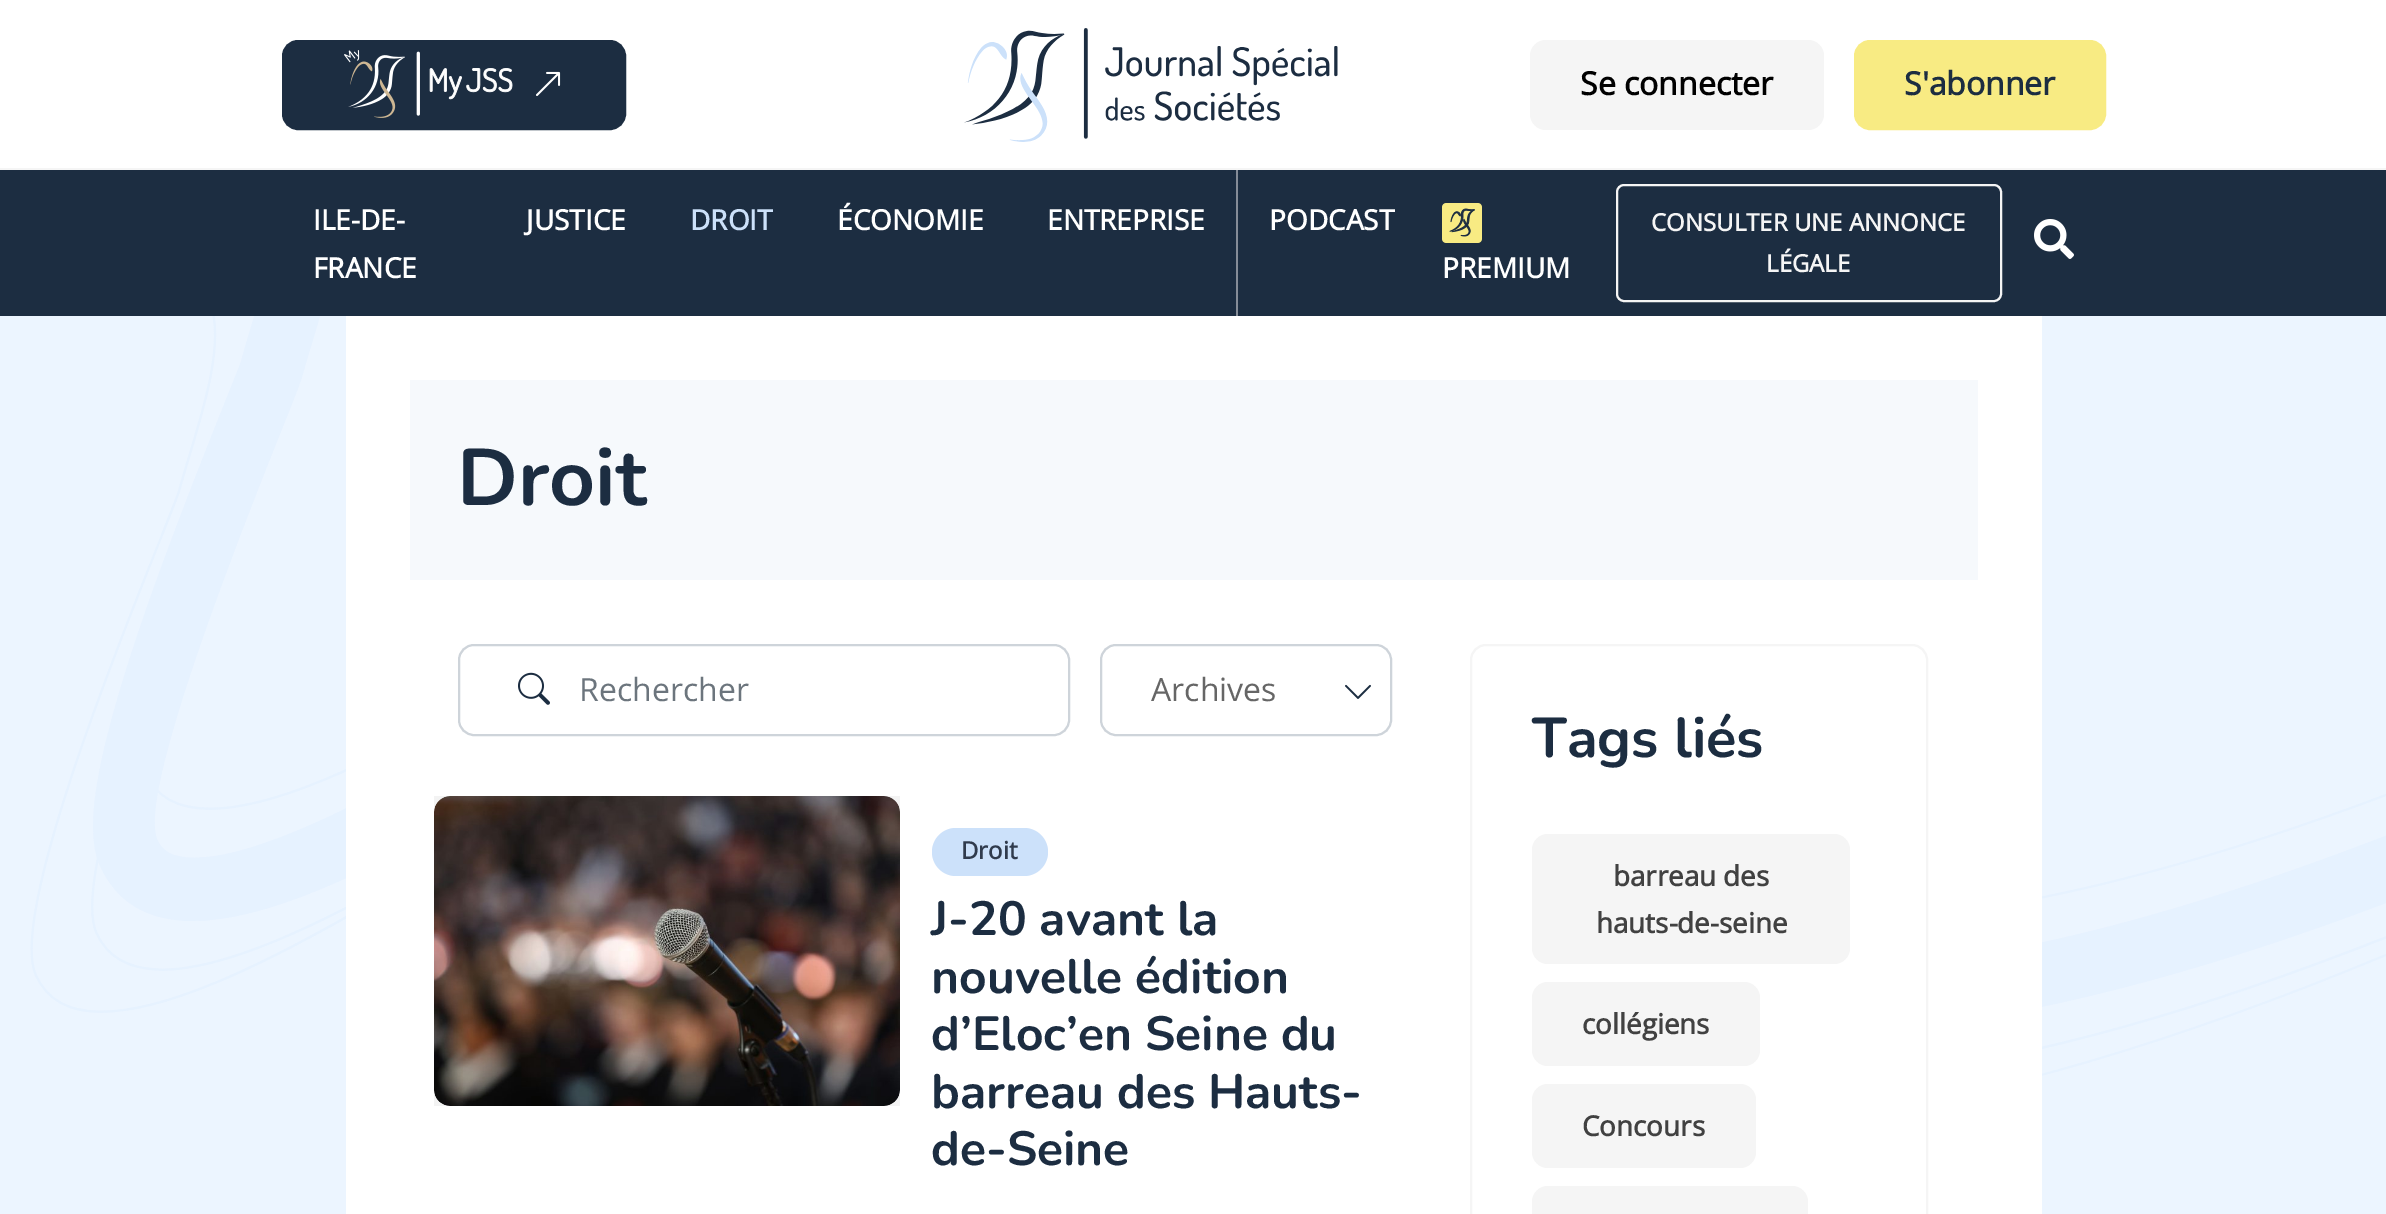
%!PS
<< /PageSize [2386 1214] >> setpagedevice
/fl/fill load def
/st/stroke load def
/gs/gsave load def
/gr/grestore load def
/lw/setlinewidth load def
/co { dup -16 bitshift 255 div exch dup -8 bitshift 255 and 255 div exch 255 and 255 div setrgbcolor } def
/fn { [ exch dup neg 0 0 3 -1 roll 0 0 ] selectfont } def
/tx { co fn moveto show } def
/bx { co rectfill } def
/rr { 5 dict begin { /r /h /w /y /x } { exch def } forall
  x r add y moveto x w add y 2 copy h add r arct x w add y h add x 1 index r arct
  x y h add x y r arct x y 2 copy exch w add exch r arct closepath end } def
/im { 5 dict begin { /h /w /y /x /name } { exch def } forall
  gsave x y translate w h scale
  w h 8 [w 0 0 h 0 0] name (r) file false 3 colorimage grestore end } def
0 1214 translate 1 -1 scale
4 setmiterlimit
0 0 2386 1214 16#ECF5FF bx
(media/1.raw) 30 316 2356 760 im
0 0 2386 168 16#FFFFFF bx
16#1C2D41 co
283 41 342 88 15 rr gs fl gr
2 lw
st
(media/2.raw) 344 50 169 68 im
(media/3.raw) 536 71 25 25 im
(media/4.raw) 964 28 374 114 im
16#F5F5F5 co
1530 40 294 90 16 rr fl
16#F8EB83 co
1855 41 250 88 15 rr gs fl gr
st
0 170 2386 146 16#1C2D41 bx
0 168 2386 2 16#F5F5F5 bx
1236 170 2 146 16#858C97 bx
(media/5.raw) 1442 203 40 40 im
16#F5F5F5 co
1617 185 384 116 7 rr st
(media/6.raw) 2034 219 40 40 im
346 316 1696 898 16#FFFFFF bx
410 380 1568 200 16#F6F9FC bx
16#CED4DA co
459 645 610 90 15 rr st
(media/7.raw) 518 672 32 33 im
1101 645 290 90 15 rr st
(media/8.raw) 1345 684 26 15 im
434 796 466 310 16#F3F3F3 bx
16#EBEBEB co
434 796 466 310 16 rr fl
(media/9.raw) 434 796 466 310 im
16#CCE1FA co
932 828 116 48 24 rr fl
16#F5F5F5 co
1471 645 456 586 15 rr st
1532 834 318 130 16 rr fl
1532 982 228 84 16 rr fl
1532 1084 224 84 16 rr fl
1532 1186 276 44 16 rr fl
(Se connecter) 1580 95 /OpenSans-Bold 32 16#000000 tx
(S'abonner) 1904 95 /OpenSans-Bold 32 16#1C2D41 tx
(ILE-DE-) 313 230 /OpenSans-Bold 28 16#FFFFFF tx
(FRANCE) 313 278 /OpenSans-Bold 28 16#FFFFFF tx
(JUSTICE) 526 230 /OpenSans-Bold 28 16#FFFFFF tx
(DROIT) 690 230 /OpenSans-Bold 28 16#CCE1FA tx
(ÉCONOMIE) 837 230 /OpenSans-Bold 28 16#FFFFFF tx
(ENTREPRISE) 1047 230 /OpenSans-Bold 28 16#FFFFFF tx
(PODCAST) 1269 230 /OpenSans-Bold 28 16#FFFFFF tx
(PREMIUM) 1442 278 /OpenSans-Bold 28 16#FFFFFF tx
(CONSULTER UNE ANNONCE) 1651 231 /OpenSans-Bold 24 16#F5F5F5 tx
(LÉGALE) 1766 272 /OpenSans-Bold 24 16#F5F5F5 tx
(Droit) 457 505 /Nunito-ExtraLight 80 16#1C2D41 tx
(Rechercher) 579 701 /OpenSans-Regular 32 16#6C757D tx
(Archives) 1151 701 /OpenSans-Regular 32 16#666666 tx
(Droit) 961 859 /OpenSans-Bold 24 16#303B4D tx
(J-20 avant la) 931 935 /Nunito-ExtraLight 48 16#1C2D41 tx
(nouvelle édition) 931 993 /Nunito-ExtraLight 48 16#1C2D41 tx
(d’Eloc’en Seine du) 931 1050 /Nunito-ExtraLight 48 16#1C2D41 tx
(barreau des Hauts-) 931 1108 /Nunito-ExtraLight 48 16#1C2D41 tx
(de-Seine) 931 1165 /Nunito-ExtraLight 48 16#1C2D41 tx
(Tags liés) 1532 757 /Nunito-ExtraLight 56 16#1C2D41 tx
(barreau des) 1613 886 /OpenSans-Bold 27.75 16#414141 tx
(hauts-de-seine) 1596 933 /OpenSans-Bold 27.75 16#414141 tx
(collégiens) 1582 1034 /OpenSans-Bold 27.75 16#414141 tx
(Concours) 1582 1136 /OpenSans-Bold 27.75 16#414141 tx
showpage
